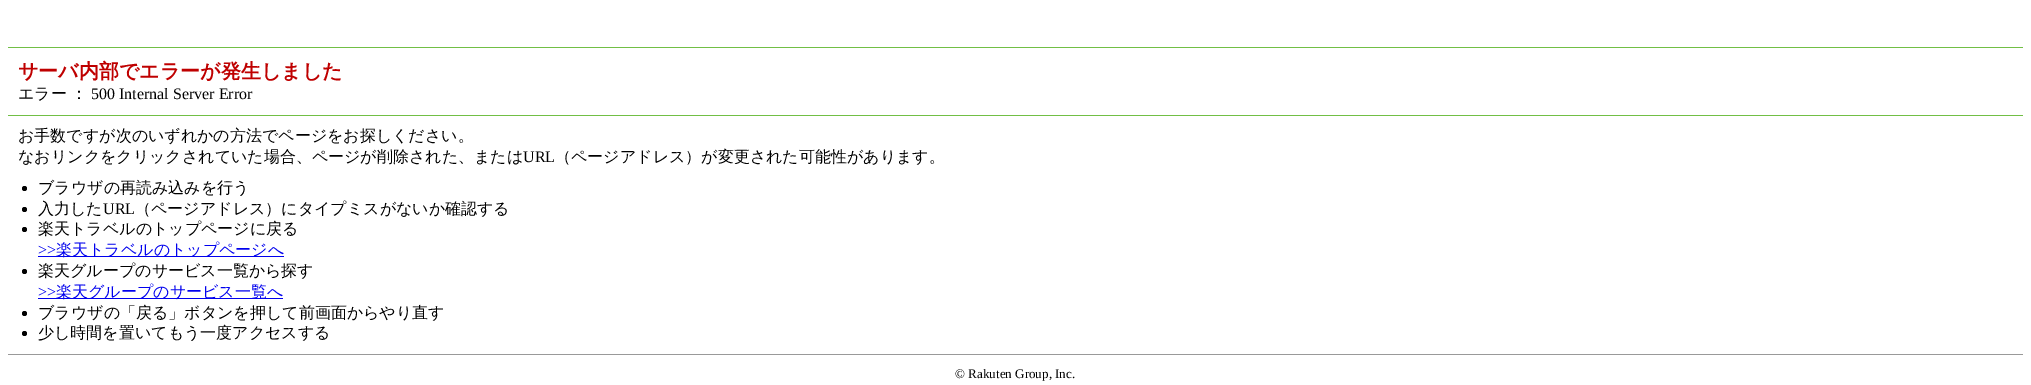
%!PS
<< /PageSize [2031 385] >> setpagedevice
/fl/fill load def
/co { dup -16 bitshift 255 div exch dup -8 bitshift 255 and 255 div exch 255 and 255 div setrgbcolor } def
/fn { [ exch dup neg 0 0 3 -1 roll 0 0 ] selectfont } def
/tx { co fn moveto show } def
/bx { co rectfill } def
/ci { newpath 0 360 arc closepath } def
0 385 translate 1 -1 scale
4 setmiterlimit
0 0 2031 385 16#FFFFFF bx
8 47 2015 1 16#71BF45 bx
8 115 2015 1 16#71BF45 bx
16#000000 co
24.5 188.5 2.5 ci fl
24.5 209.5 2.5 ci fl
24.5 229.5 2.5 ci fl
38 256 246 1 16#0000EE bx
16#000000 co
24.5 271.5 2.5 ci fl
38 298 245 1 16#0000EE bx
16#000000 co
24.5 313.5 2.5 ci fl
24.5 333.5 2.5 ci fl
8 354 2015 1 16#999999 bx
(サーバ内部でエラーが発生しました) 18 78 /WenQuanYiZenHei-Bold 20 16#BF0000 tx
(エラー) 18 99 /WenQuanYiZenHei-Medium 16 16#000000 tx
(：) 71 99 /WenQuanYiZenHei-Medium 16 16#000000 tx
(500 Internal Server Error) 91 99 /LiberationSerif-Regular 16 16#000000 tx
(お手数ですが次のいずれかの方法でページをお探しください。) 18 141 /WenQuanYiZenHei-Medium 16 16#000000 tx
(なおリンクをクリックされていた場合、ページが削除された、または) 18 162 /WenQuanYiZenHei-Medium 16 16#000000 tx
(URL) 523 162 /LiberationSerif-Regular 16 16#000000 tx
(（ページアドレス）が変更された可能性があります。) 555 162 /WenQuanYiZenHei-Medium 16 16#000000 tx
(ブラウザの再読み込みを行う) 38 193 /WenQuanYiZenHei-Medium 16 16#000000 tx
(入力した) 38 214 /WenQuanYiZenHei-Medium 16 16#000000 tx
(URL) 103 214 /LiberationSerif-Regular 16 16#000000 tx
(（ページアドレス）にタイプミスがないか確認する) 135 214 /WenQuanYiZenHei-Medium 16 16#000000 tx
(楽天トラベルのトップページに戻る) 38 234 /WenQuanYiZenHei-Medium 16 16#000000 tx
(>>) 38 255 /LiberationSerif-Regular 16 16#0000EE tx
(楽天トラベルのトップページへ) 56 255 /WenQuanYiZenHei-Medium 16 16#0000EE tx
(楽天グループのサービス一覧から探す) 38 276 /WenQuanYiZenHei-Medium 16 16#000000 tx
(>>) 38 297 /LiberationSerif-Regular 16 16#0000EE tx
(楽天グループのサービス一覧へ) 56 297 /WenQuanYiZenHei-Medium 16 16#0000EE tx
(ブラウザの「戻る」ボタンを押して前画面からやり直す) 38 318 /WenQuanYiZenHei-Medium 16 16#000000 tx
(少し時間を置いてもう一度アクセスする) 38 338 /WenQuanYiZenHei-Medium 16 16#000000 tx
(© Rakuten Group, Inc.) 955 378 /LiberationSerif-Regular 13.1 16#000000 tx
showpage
